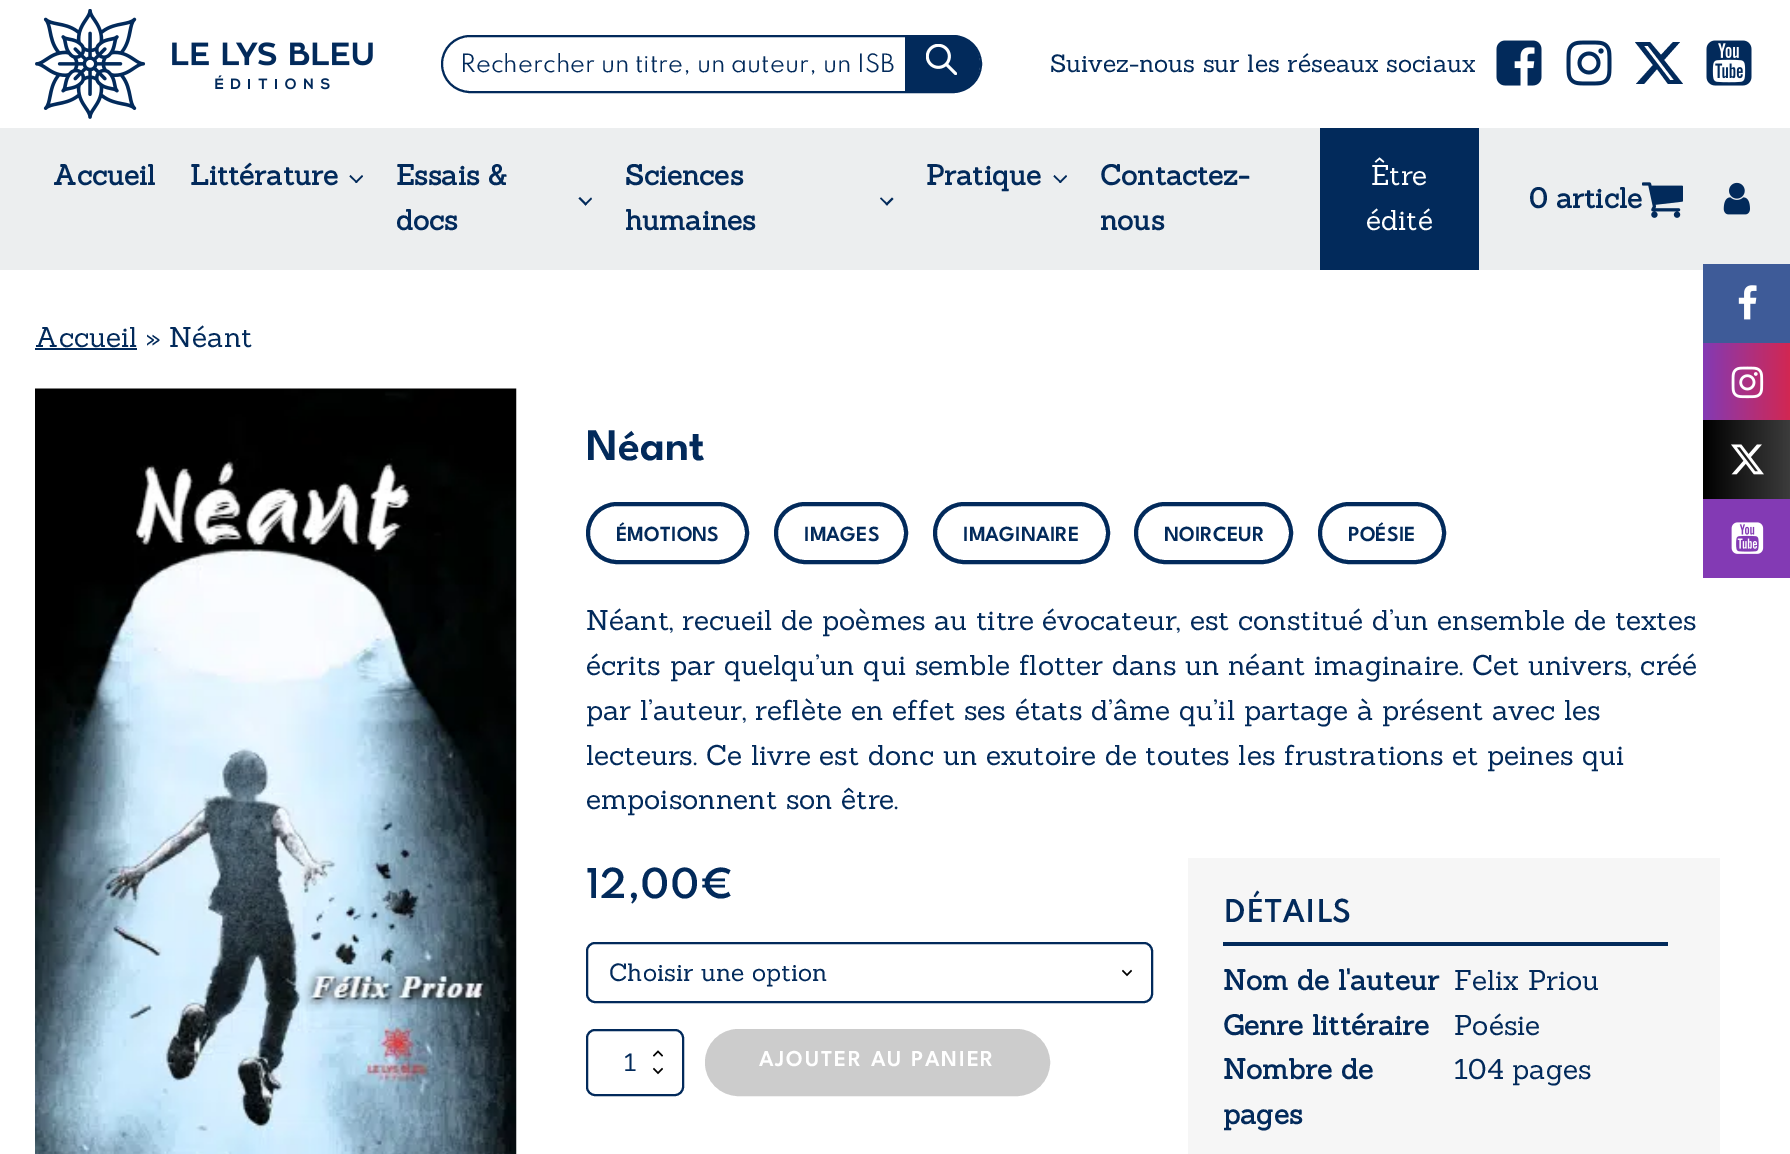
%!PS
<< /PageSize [1790 1154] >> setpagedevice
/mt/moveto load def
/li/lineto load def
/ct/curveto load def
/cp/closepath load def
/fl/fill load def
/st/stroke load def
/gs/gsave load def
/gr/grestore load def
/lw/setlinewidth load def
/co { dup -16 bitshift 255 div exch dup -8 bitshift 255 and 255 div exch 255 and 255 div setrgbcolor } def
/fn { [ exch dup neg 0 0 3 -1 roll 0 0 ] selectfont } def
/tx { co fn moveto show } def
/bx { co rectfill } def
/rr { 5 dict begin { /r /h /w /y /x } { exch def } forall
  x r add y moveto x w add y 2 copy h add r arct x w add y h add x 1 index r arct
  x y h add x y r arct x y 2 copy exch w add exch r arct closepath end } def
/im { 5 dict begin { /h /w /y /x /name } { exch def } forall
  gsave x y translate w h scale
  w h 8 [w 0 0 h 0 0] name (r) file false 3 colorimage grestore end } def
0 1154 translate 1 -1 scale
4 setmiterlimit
0 0 1790 1154 16#FFFFFF bx
(media/1.raw) 35 9 338 110 im
16#022A5B co
2 lw
442 36 539 56 28 rr st
905 35 mt 951 35 li 967 35 980 48 980 64 ct 980 80 967 93 951 93 ct 905 93 li cp fl
(media/2.raw) 926 44 31 31 im
(media/3.raw) 1496 40 46 46 im
(media/4.raw) 1566 40 46 46 im
1673 42 mt 1680 42 li 1664 60 li 1683 84 li 1668 84 li 1657 69 li 1644 84 li 1636 84 li 1653 65 li 1635 42 li 1650 42 li 1661 55 li cp 1670 80 mt 1674 80 li 1648 46 li 1644 46 li cp fl
(media/5.raw) 1706 40 46 46 im
0 128 1790 142 16#ECEEEF bx
16#022A5B co
363 176.5 mt 356.5 183 li 355 182 li 362 175 li cp fl
357.5 182 mt 356.5 183 li 349.5 176.5 li 350.5 175 li cp fl
592 199 mt 585.5 205.5 li 584.5 204 li 591 197.5 li cp fl
587 204 mt 585.5 205.5 li 578.5 198.5 li 580 197 li cp fl
893.5 199 mt 887 205.5 li 885.5 204 li 892 197.5 li cp fl
888 204 mt 887 205.5 li 880 198.5 li 881 197.5 li cp fl
1067 176.5 mt 1060.5 183 li 1059 182 li 1066 175 li cp fl
1061.5 182 mt 1060.5 183 li 1053.5 176.5 li 1054.5 175 li cp fl
1320 128 159 142 16#022A5B bx
(media/6.raw) 1642 182 41 36 im
(media/7.raw) 1723 182 27 33 im
35 348 102 2 16#022A5B bx
(media/8.raw) 35 388 482 766 im
4 lw
588 504 159 58 29 rr st
776 504 130 58 29 rr st
935 504 173 58 29 rr st
1136 504 155 58 29 rr st
1320 504 124 58 29 rr st
(media/9.raw) 1122 969 10 8 im
2 lw
587 943 565 59 8 rr st
(media/10.raw) 653 1050 10 7 im
(media/9.raw) 653 1067 10 8 im
587 1030 96 65 8 rr st
16#CCCCCC co
706 1030 343 65 32.5 rr gs fl gr
st
1188 858 532 296 16#F6F6F6 bx
1223 942 445 4 16#022A5B bx
1703 264 87 79 16#3E5B98 bx
(media/11.raw) 1738 285 19 35 im
gs 1703 343 mt 1790 343 li 1790 420 li 1703 420 li cp clip newpath
<< /ShadingType 2 /ColorSpace /DeviceRGB /Coords [1703 382 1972 382] /Extend [true true] /Function << /FunctionType 3 /Domain [0 1] /Functions [<< /FunctionType 2 /Domain [0 1] /C0 [.514 .227 .706] /C1 [.992 .114 .114] /N 1 >> << /FunctionType 2 /Domain [0 1] /C0 [.992 .114 .114] /C1 [.988 .69 .271] /N 1 >>] /Bounds [.5] /Encode [0 1 0 1] >> >> shfill gr
(media/12.raw) 1731 366 33 33 im
gs 1703 420 mt 1790 420 li 1790 499 li 1703 499 li cp clip newpath
<< /ShadingType 2 /ColorSpace /DeviceRGB /Coords [1703 459 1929 459] /Extend [true true] /Function << /FunctionType 3 /Domain [0 1] /Functions [<< /FunctionType 2 /Domain [0 1] /C0 [0 0 0] /C1 [.22 .22 .22] /N 1 >> << /FunctionType 2 /Domain [0 1] /C0 [.22 .22 .22] /C1 [.596 .596 .596] /N 1 >>] /Bounds [.36] /Encode [0 1 0 1] >> >> shfill gr
(media/13.raw) 1731 444 33 31 im
1703 499 87 79 16#833AB4 bx
(media/14.raw) 1731 522 33 32 im
gs
460 53 438 26 rectclip
(Rechercher un titre, un auteur, un ISB) 460 72 /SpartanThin-Regular 22.4 16#022A5B tx
gr
(Suivez-nous sur les réseaux sociaux) 1050 72 /Sanchez-Regular 24.5 16#022A5B tx
(Accueil) 53 185 /Sanchez-Bold 28 16#022A5B tx
(Littérature) 190 185 /Sanchez-Bold 28 16#022A5B tx
(Essais &) 396 185 /Sanchez-Bold 28 16#022A5B tx
(docs) 396 230 /Sanchez-Bold 28 16#022A5B tx
(Sciences) 625 185 /Sanchez-Bold 28 16#022A5B tx
(humaines) 625 230 /Sanchez-Bold 28 16#022A5B tx
(Pratique) 926 185 /Sanchez-Bold 28 16#022A5B tx
(Contactez-) 1100 185 /Sanchez-Bold 28 16#022A5B tx
(nous) 1100 230 /Sanchez-Bold 28 16#022A5B tx
(Être) 1371 185 /Sanchez-Regular 28 16#FFFFFF tx
(édité) 1366 230 /Sanchez-Regular 28 16#FFFFFF tx
(0 article) 1529 208 /Sanchez-Bold 28 16#022A5B tx
(Accueil » Néant) 35 347 /Sanchez-Regular 28 16#022A5B tx
(Néant) 586 460 /LeagueSpartan-SemiBold 45 16#022A5B tx
(ÉMOTIONS) 616 541 /LeagueSpartan-SemiBold 21.5 16#022A5B tx
(IMAGES) 804 541 /LeagueSpartan-SemiBold 21.5 16#022A5B tx
(IMAGINAIRE) 963 541 /LeagueSpartan-SemiBold 21.5 16#022A5B tx
(NOIRCEUR) 1164 541 /LeagueSpartan-SemiBold 21.5 16#022A5B tx
(POÉSIE) 1348 541 /LeagueSpartan-SemiBold 21.5 16#022A5B tx
(Néant, recueil de poèmes au titre évocateur, est constitué d’un ensemble de textes) 586 630 /Sanchez-Regular 28 16#022A5B tx
(écrits par quelqu’un qui semble flotter dans un néant imaginaire. Cet univers, créé) 586 675 /Sanchez-Regular 28 16#022A5B tx
(par l’auteur, reflète en effet ses états d’âme qu’il partage à présent avec les) 586 720 /Sanchez-Regular 28 16#022A5B tx
(lecteurs. Ce livre est donc un exutoire de toutes les frustrations et peines qui) 586 765 /Sanchez-Regular 28 16#022A5B tx
(empoisonnent son être.) 586 809 /Sanchez-Regular 28 16#022A5B tx
(12,00€) 586 898 /SpartanThin-SemiBold 36.5 16#022A5B tx
(Choisir une option) 609 981 /Sanchez-Regular 24.5 16#022A5B tx
(1) 624 1071 /Sanchez-Regular 24.5 16#022A5B tx
/LeagueSpartan-SemiBold 22.75 fn
16#FFFFFF co
759 1066 mt 1.75 0 (AJOUTER AU PANIER) ashow
(DÉTAILS) 1223 922 /SpartanThin-SemiBold 28 16#022A5B tx
(Nom de l'auteur) 1223 990 /Sanchez-Bold 28 16#022A5B tx
(Felix Priou) 1454 990 /Sanchez-Regular 28 16#022A5B tx
(Genre littéraire) 1223 1035 /Sanchez-Bold 28 16#022A5B tx
(Poésie) 1454 1035 /Sanchez-Regular 28 16#022A5B tx
(Nombre de) 1223 1079 /Sanchez-Bold 28 16#022A5B tx
(pages) 1223 1124 /Sanchez-Bold 28 16#022A5B tx
(104 pages) 1454 1079 /Sanchez-Regular 28 16#022A5B tx
showpage
